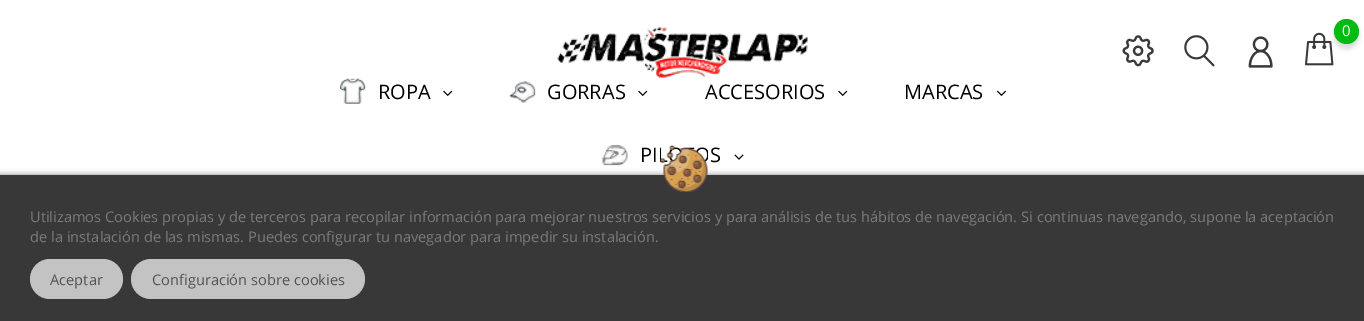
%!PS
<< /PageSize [1364 321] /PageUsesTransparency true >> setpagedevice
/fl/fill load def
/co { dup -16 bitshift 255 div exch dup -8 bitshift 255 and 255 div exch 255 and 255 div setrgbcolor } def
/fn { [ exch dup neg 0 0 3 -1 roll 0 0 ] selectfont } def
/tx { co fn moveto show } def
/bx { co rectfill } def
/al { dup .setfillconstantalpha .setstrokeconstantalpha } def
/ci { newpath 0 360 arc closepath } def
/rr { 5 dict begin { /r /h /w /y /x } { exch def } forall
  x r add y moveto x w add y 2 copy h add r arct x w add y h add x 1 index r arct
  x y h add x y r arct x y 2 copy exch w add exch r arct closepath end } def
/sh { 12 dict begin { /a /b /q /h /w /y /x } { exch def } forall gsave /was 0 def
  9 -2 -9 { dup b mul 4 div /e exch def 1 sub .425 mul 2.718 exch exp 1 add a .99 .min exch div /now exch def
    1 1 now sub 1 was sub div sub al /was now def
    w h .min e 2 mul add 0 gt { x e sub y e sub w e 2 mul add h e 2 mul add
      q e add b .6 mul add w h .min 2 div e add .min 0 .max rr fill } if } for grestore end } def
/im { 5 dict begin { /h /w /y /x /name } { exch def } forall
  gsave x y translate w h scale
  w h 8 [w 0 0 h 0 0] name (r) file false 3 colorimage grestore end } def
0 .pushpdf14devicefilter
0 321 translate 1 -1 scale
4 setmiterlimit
0 0 1364 321 16#FFFFFF bx
(media/1.raw) 557 27 251 51 im
(media/2.raw) 1122 35 32 32 im
(media/3.raw) 1184 35 31 32 im
(media/4.raw) 1248 36 25 32 im
(media/5.raw) 1305 32 29 34 im
16#000000 co
1334 24 25 25 12.5 2.5 .14 sh
16#00BB12 co
1346.5 31.5 12.5 ci fl
(media/6.raw) 340 78 26 26 im
(media/7.raw) 443 90 10 6 im
(media/8.raw) 509 81 27 22 im
(media/7.raw) 638 90 10 6 im
(media/7.raw) 838 90 10 6 im
(media/9.raw) 997 90 9 6 im
(media/10.raw) 602 144 26 22 im
(media/11.raw) 734 154 10 6 im
16#000000 co
0 175 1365 146 0 3 .5 sh
0 175 1364 146 16#383838 bx
(media/12.raw) 660 145 48 47 im
16#C3C3C3 co
30 259 93 40 20 rr fl
131 259 234 40 20 rr fl
(0) 1342 36 /OpenSans-Regular 15 16#FFFFFF tx
(ROPA) 378 99 /OpenSans-Regular 20 16#000000 tx
(GORRAS) 547 99 /OpenSans-Regular 20 16#000000 tx
(ACCESORIOS) 705 99 /OpenSans-Regular 20 16#000000 tx
(MARCAS) 904 99 /OpenSans-Regular 20 16#000000 tx
(PI) 640 162 /OpenSans-Regular 20 16#000000 tx
(S) 710 162 /OpenSans-Regular 20 16#000000 tx
(Utilizamos Cookies propias y de terceros para recopilar información para mejorar nuestros servicios y para análisis de tus hábitos de navegación. Si continuas navegando, supone la aceptación) 30 222 /OpenSans-Regular 14.62 16#7A7A7A tx
(de la instalación de las mismas. Puedes configurar tu navegador para impedir su instalación.) 30 242 /OpenSans-Regular 14.62 16#7A7A7A tx
(Aceptar) 50 285 /OpenSans-Regular 14.62 16#535353 tx
(Configuración sobre cookies) 152 285 /OpenSans-Regular 14.62 16#535353 tx
.poppdf14devicefilter showpage
